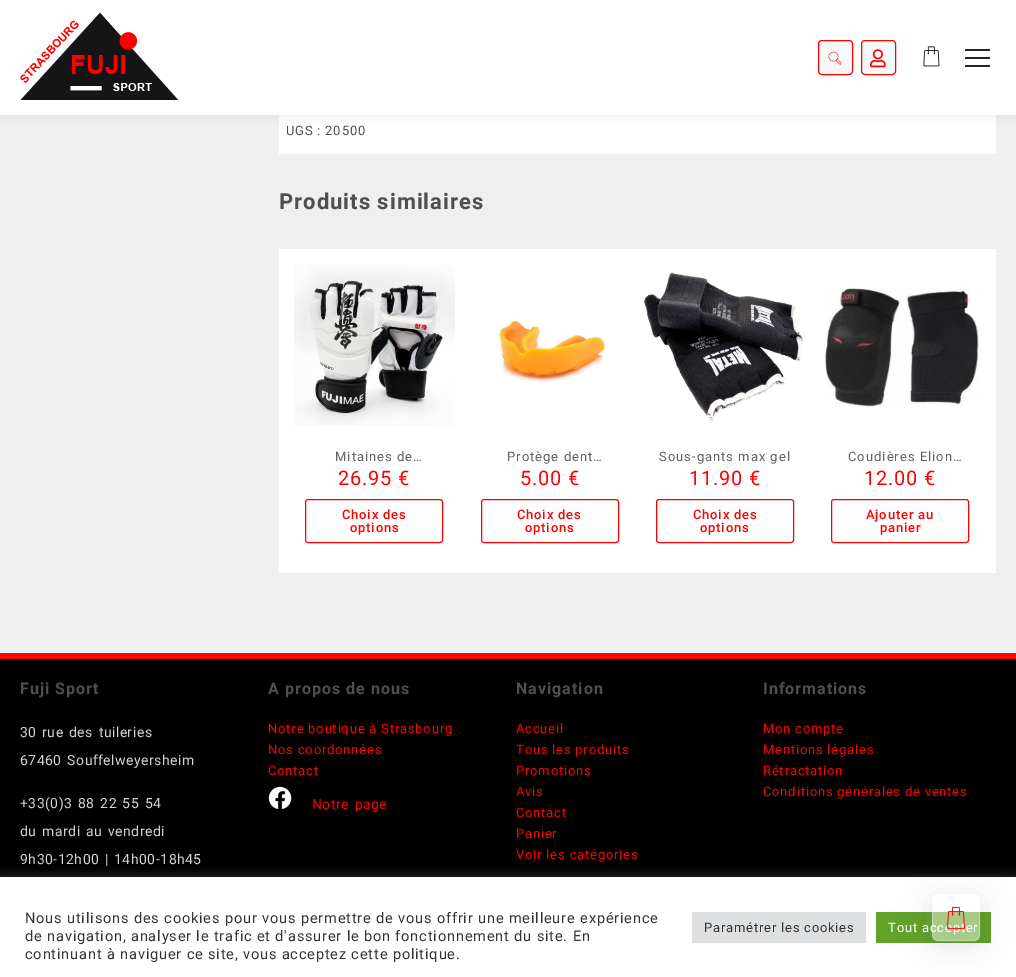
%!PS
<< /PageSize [1016 977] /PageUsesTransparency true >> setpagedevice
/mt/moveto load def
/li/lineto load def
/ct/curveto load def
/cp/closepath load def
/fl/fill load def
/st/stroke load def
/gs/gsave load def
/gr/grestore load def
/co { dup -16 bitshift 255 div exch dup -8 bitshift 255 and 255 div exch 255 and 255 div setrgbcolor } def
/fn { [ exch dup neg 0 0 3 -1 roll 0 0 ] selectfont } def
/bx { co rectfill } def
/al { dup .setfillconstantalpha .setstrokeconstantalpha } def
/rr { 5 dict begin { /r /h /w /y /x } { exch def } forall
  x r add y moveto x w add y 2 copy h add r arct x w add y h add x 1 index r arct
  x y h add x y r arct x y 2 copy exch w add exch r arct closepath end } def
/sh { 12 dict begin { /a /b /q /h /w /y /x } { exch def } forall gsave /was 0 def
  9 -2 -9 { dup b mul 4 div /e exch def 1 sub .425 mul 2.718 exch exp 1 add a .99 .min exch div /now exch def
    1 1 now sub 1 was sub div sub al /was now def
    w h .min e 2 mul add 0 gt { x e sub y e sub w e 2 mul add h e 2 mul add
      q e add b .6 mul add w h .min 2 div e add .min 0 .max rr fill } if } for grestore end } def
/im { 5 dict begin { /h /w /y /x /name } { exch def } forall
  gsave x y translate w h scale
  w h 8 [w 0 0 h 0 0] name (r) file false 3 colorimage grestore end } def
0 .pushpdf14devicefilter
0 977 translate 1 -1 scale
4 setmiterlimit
0 0 1016 977 16#EFEFEF bx
279 115 717 39 16#FFFFFF bx
16#000000 co
0 0 1016 115 0 5 .08 sh
0 0 1016 115 16#FFFFFF bx
(media/1.raw) 20 12 159 88 im
16#F7F8F9 co
818.5 40.5 34 34 3.5 rr gs fl gr
16#FF0000 co
st
(media/2.raw) 828 51 14 14 im
16#F7F8F9 co
861.5 40.5 34 34 3.5 rr gs fl gr
16#FF0000 co
st
(media/3.raw) 870 49 16 19 im
(media/4.raw) 923 46 17 21 im
16#242424 co
965 49 25 2 1 rr fl
965 57 25 2 1 rr fl
965 65 25 2 1 rr fl
279 249 717 324 16#FFFFFF bx
(media/5.raw) 294 264 161 162 im
16#FD0101 co
305.5 499.5 137 43 2.5 rr st
(media/6.raw) 494 320 112 63 im
481.5 499.5 137 43 2.5 rr st
(media/7.raw) 644 272 160 149 im
656.5 499.5 137 43 2.5 rr st
(media/8.raw) 825 287 154 120 im
831.5 499.5 137 43 2.5 rr st
0 653 1016 6 16#F90800 bx
0 659 1016 218 16#000000 bx
(media/9.raw) 268 786 24 24 im
16#ACABAB co
0 876 1016 100 0 5 .3 sh
0 877 1016 100 16#FFFFFF bx
876 912 115 31 16#61A229 bx
gs
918 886 mt 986 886 li 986 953 li 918 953 li cp 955.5 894 mt 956.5 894 li 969.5 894 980 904.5 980 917.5 ct 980 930.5 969.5 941 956.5 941 ct 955.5 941 li 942.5 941 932 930.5 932 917.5 ct 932 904.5 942.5 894 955.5 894 ct cp eoclip newpath
16#DDDDDD co
928 896 48 47 23.5 3 .1 sh
gr
gs
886 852 mt 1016 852 li 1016 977 li 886 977 li cp 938 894 mt 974 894 li 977.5 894 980 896.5 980 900 ct 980 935 li 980 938.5 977.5 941 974 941 ct 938 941 li 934.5 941 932 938.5 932 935 ct 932 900 li 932 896.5 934.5 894 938 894 ct cp eoclip newpath
16#000000 co
932 898 48 47 6 15 .1 sh
gr
692 912 174 31 16#DEDFE0 bx
/Roboto-Regular 13 fn
16#4F4F4F co
286 135 mt .8 0 (UGS : 20500) ashow
/Roboto-Bold 22 fn
279 209 mt 1 0 (Produits similaires) ashow
/Roboto-Regular 13 fn
16#626060 co
335 461 mt 1 0 (Mitaines de…) ashow
/Roboto-Regular 20 fn
16#FD0101 co
338 485 mt .8 0 (26.95 €) ashow
/Roboto-Medium 13 fn
342 519 mt .8 0 (Choix des) ashow
350 532 mt .8 0 (options) ashow
/Roboto-Regular 13 fn
16#626060 co
507 461 mt 1 0 (Protège dent…) ashow
/Roboto-Regular 20 fn
16#FD0101 co
520 485 mt .8 0 (5.00 €) ashow
/Roboto-Medium 13 fn
517 519 mt .8 0 (Choix des) ashow
525 532 mt .8 0 (options) ashow
/Roboto-Regular 13 fn
16#626060 co
659 461 mt 1 0 (Sous-gants max gel) ashow
/Roboto-Regular 20 fn
16#FD0101 co
689 485 mt .8 0 (11.90 €) ashow
/Roboto-Medium 13 fn
693 519 mt .8 0 (Choix des) ashow
700 532 mt .8 0 (options) ashow
/Roboto-Regular 13 fn
16#626060 co
848 461 mt 1 0 (Coudières Elion…) ashow
/Roboto-Regular 20 fn
16#FD0101 co
864 485 mt .8 0 (12.00 €) ashow
/Roboto-Medium 13 fn
866 519 mt .8 0 (Ajouter au) ashow
880 532 mt .8 0 (panier) ashow
/Roboto-Bold 16 fn
16#4F4F4F co
20 694 mt 1 0 (Fuji Sport) ashow
/Roboto-Regular 14 fn
16#D3D3D3 co
20 737 mt 1.5 0 32 .5 0 (30 rue des tuileries) awidthshow
20 765 mt 1.5 0 32 .5 0 (67460 Souffelweyersheim) awidthshow
20 808 mt 1.5 0 32 .5 0 (+33\(0\)3 88 22 55 54) awidthshow
20 836 mt 1.5 0 32 .5 0 (du mardi au vendredi) awidthshow
20 864 mt 1.5 0 32 .5 0 (9h30-12h00 | 14h00-18h45) awidthshow
/Roboto-Bold 16 fn
16#4F4F4F co
268 694 mt 1 0 (A propos de nous) ashow
/Roboto-Regular 13 fn
16#FD0101 co
268 733 mt .8 0 (Notre boutique à Strasbourg) ashow
268 754 mt .8 0 (Nos coordonnées) ashow
268 775 mt .8 0 (Contact) ashow
/Roboto-Regular 14 fn
312 809 mt 1.5 0 32 .5 0 (Notre page) awidthshow
/Roboto-Bold 16 fn
16#4F4F4F co
516 694 mt 1 0 (Navigation) ashow
/Roboto-Regular 13 fn
16#FD0101 co
516 733 mt .8 0 (Accueil) ashow
516 754 mt .8 0 (Tous les produits) ashow
516 775 mt .8 0 (Promotions) ashow
516 796 mt .8 0 (Avis) ashow
516 817 mt .8 0 (Contact) ashow
516 838 mt .8 0 (Panier) ashow
516 859 mt .8 0 (Voir les catégories) ashow
/Roboto-Bold 16 fn
16#4F4F4F co
763 694 mt 1 0 (Informations) ashow
/Roboto-Regular 13 fn
16#FD0101 co
763 733 mt .8 0 (Mon compte) ashow
763 754 mt .8 0 (Mentions légales) ashow
763 775 mt .8 0 (Rétractation) ashow
763 796 mt .8 0 (Conditions générales de ventes) ashow
/Roboto-Regular 14.65 fn
16#333333 co
25 923 mt .8 0 (Nous utilisons des cookies pour vous permettre de vous offrir une meilleure expérience) ashow
25 941 mt .8 0 (de navigation, analyser le trafic et d'assurer le bon fonctionnement du site. En) ashow
25 959 mt .8 0 (continuant à naviguer ce site, vous acceptez cette politique.) ashow
/Roboto-Regular 13 fn
704 932 mt .8 0 (Paramétrer les cookies) ashow
16#FFFFFF co
888 932 mt .8 0 (Tout accepter) ashow
0.44 al
932 894 48 47 6 rr fl
0.27 al
932.5 894.5 47 46 5.5 rr st
1 al
(media/10.raw) 947 906 18 24 im
.poppdf14devicefilter showpage
